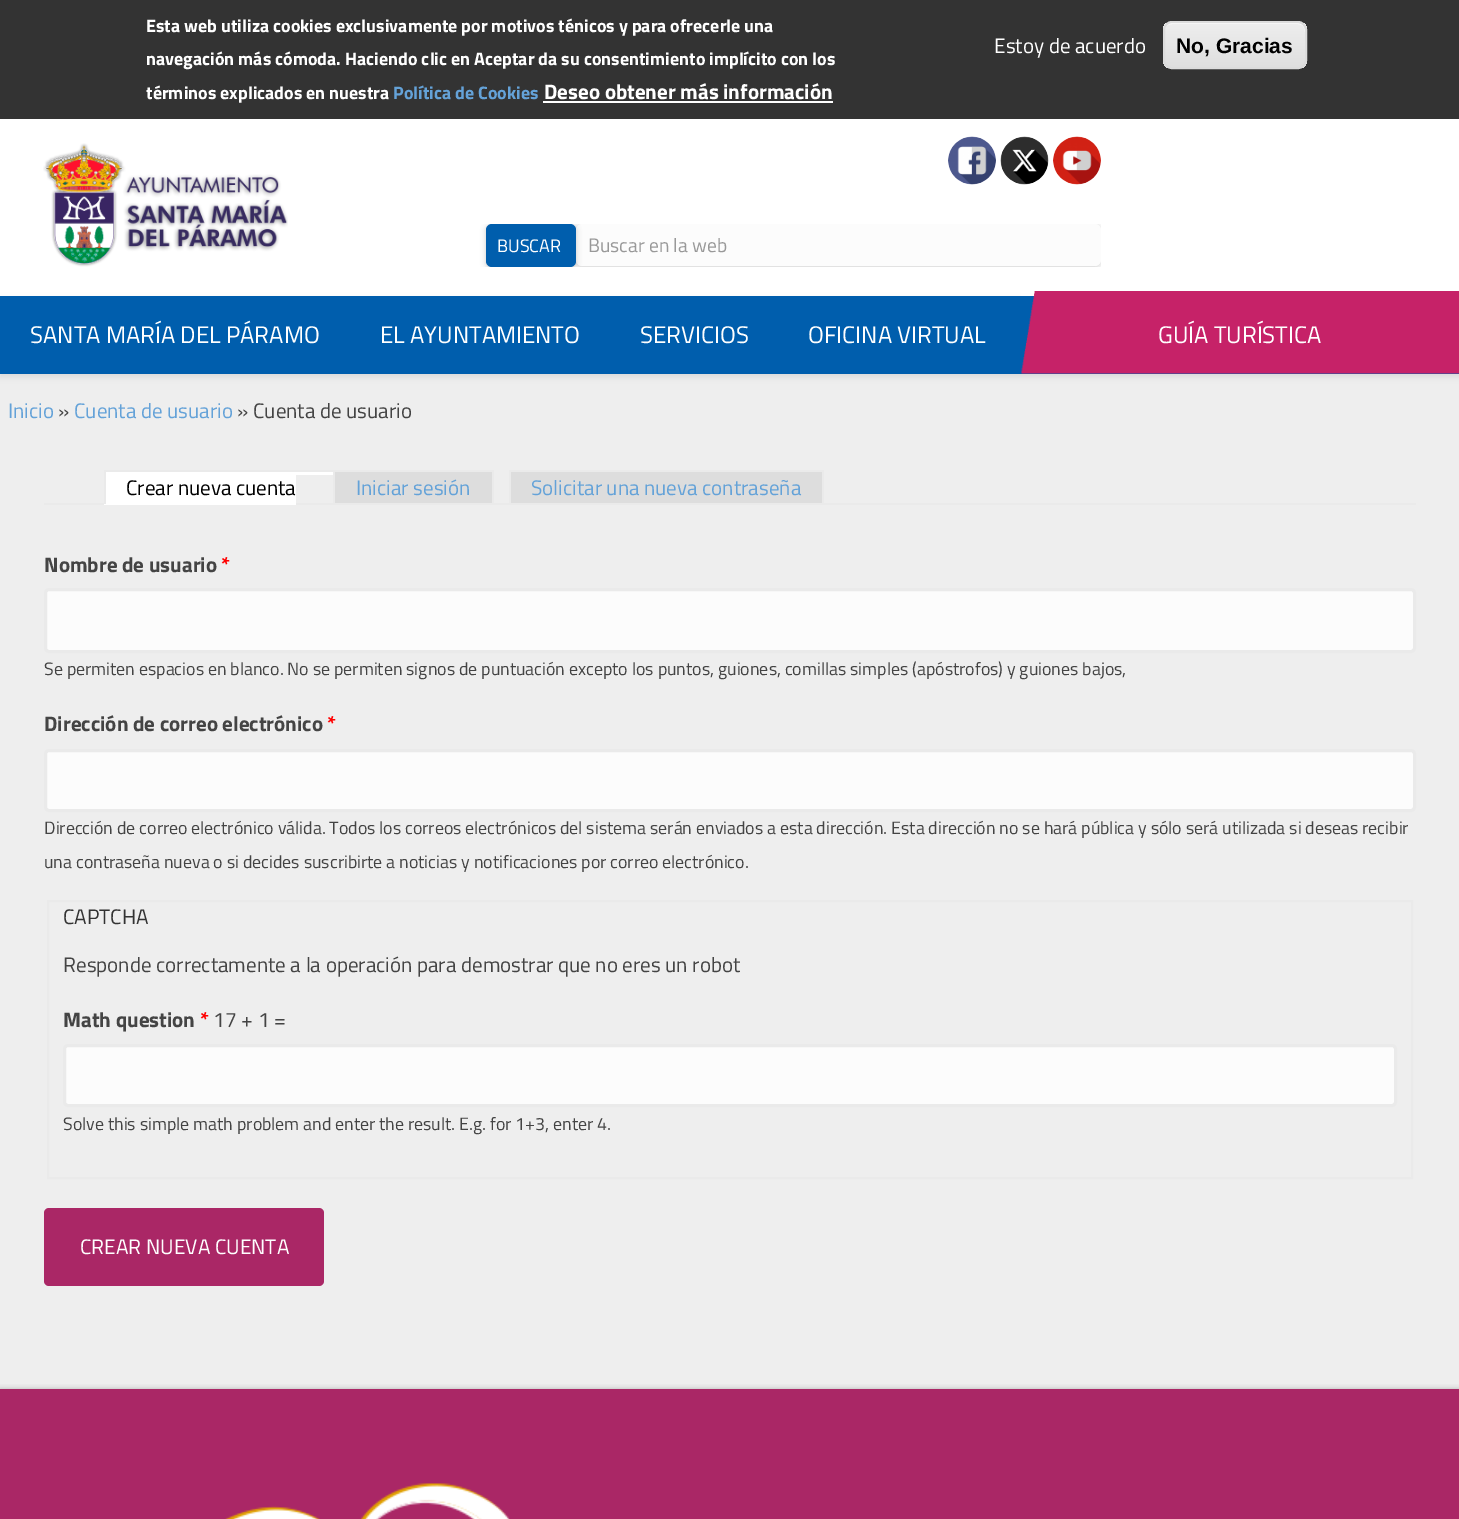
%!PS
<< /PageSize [1459 1519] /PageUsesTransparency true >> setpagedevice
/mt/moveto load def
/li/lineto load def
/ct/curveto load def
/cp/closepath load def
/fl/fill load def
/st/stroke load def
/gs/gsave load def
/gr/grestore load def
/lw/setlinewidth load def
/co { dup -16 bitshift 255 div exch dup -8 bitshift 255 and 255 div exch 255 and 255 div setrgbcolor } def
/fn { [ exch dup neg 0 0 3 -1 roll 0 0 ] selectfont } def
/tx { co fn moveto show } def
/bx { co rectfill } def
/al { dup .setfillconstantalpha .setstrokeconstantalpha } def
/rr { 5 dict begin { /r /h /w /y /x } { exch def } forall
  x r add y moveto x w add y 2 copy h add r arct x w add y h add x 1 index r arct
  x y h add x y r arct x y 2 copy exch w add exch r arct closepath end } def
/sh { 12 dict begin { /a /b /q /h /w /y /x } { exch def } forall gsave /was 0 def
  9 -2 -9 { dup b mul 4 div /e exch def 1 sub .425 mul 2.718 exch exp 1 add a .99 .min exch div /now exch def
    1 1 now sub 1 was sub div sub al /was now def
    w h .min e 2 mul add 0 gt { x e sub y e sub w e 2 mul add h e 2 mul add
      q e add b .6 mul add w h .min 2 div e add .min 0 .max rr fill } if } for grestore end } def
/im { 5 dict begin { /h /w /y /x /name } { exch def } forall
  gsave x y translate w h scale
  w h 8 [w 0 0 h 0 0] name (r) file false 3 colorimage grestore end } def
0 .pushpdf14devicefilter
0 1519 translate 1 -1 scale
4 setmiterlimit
0 0 1459 1519 16#EEEEEE bx
0 0 1459 119 16#333333 bx
543 101 290 2 16#FFFFFF bx
gs
1163 21 144 48 9 rr clip newpath
gs 1163 23 mt 1307 23 li 1307 68 li 1163 68 li cp clip newpath
<< /ShadingType 2 /ColorSpace /DeviceRGB /Coords [1235 22 1235 68] /Extend [true true] /Function << /FunctionType 3 /Domain [0 1] /Functions [<< /FunctionType 2 /Domain [0 1] /C0 [.929 .929 .929] /C1 [.929 .929 .929] /N 1 >> << /FunctionType 2 /Domain [0 1] /C0 [.929 .929 .929] /C1 [.875 .875 .875] /N 1 >>] /Bounds [.05] /Encode [0 1 0 1] >> >> shfill gr
gr
1172 24 mt 1298 24 li 1302 24 1305 27 1305 32 ct 1305 18 1283 23 1276 23 ct 1193 23 li 1186 23 1164 18 1164 32 ct 1164 27 1167 24 1172 24 ct cp fl
16#DCDCDC co
2 lw
1164 22 142 46 8 rr st
0 119 1459 177 16#FFFFFF bx
(media/1.raw) 43 143 245 124 im
(media/2.raw) 948 136 48 49 im
(media/3.raw) 1000 136 49 49 im
(media/4.raw) 1053 136 48 49 im
gs
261 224 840 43 rectclip
16#000000 co
576 225 525 42 6 3 .2 sh
gr
16#FCFCFC co
576 224 525 42 6 rr fl
gs
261 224 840 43 rectclip
16#000000 co
486 225 90 44 6 3 .2 sh
gr
16#005EAD co
486 224 90 43 6 rr fl
16#000000 co
0 299 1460 78 0 3 .07 sh
0 296 1459 78 16#005EAD bx
(media/5.raw) 1021 291 438 83 im
44 503 1372 2 16#EAEAEA bx
106 472 190 31 16#FFFFFF bx
104 470 390 2 16#EAEAEA bx
104 503 192 2 16#FFFFFF bx
104 470 2 34 16#EAEAEA bx
296 472 37 3 16#FFFFFF bx
335 472 157 31 16#DDDDDD bx
492 470 2 33 16#EAEAEA bx
333 470 2 33 16#EAEAEA bx
511 472 311 31 16#DDDDDD bx
509 470 315 2 16#EAEAEA bx
822 470 2 33 16#EAEAEA bx
509 470 2 33 16#EAEAEA bx
16#FCFCFC co
45.5 589.5 1369 62 3.5 rr gs fl gr
16#EAEAEA co
3 lw
st
16#FCFCFC co
45.5 750.5 1369 60 3.5 rr gs fl gr
16#EAEAEA co
st
2 lw
48 901 1364 277 rectstroke
16#FCFCFC co
64.5 1045.5 1331 60 3.5 rr gs fl gr
16#EAEAEA co
3 lw
st
16#AA2766 co
44 1208 280 78 5 rr fl
16#000000 co
0 1391 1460 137 0 3 .55 sh
0 1389 1459 130 16#AA2766 bx
(media/6.raw) 225 1483 285 36 im
(Esta web utiliza cookies exclusivamente por motivos ténicos y para ofrecerle una) 146 32 /TitilliumWeb-Bold 18 16#FFFFFF tx
(navegación más cómoda. Haciendo clic en Aceptar da su consentimiento implícito con los) 146 65 /TitilliumWeb-Bold 18 16#FFFFFF tx
(términos explicados en nuestra) 146 99 /TitilliumWeb-Bold 18 16#FFFFFF tx
(Política de Cookies) 393 99 /TitilliumWeb-Bold 18 16#64A2D8 tx
(Deseo obtener más información) 544 99 /TitilliumWeb-Bold 21 16#FFFFFF tx
(Estoy de acuerdo) 994 53 /TitilliumWeb-Regular 21 16#FFFFFF tx
(No, Gracias) 1176 53 /LiberationSans-Bold 21 16#000000 tx
(BUSCAR) 497 252 /TitilliumWeb-Regular 18 16#FFFFFF tx
(Buscar en la web) 588 252 /TitilliumWeb-Regular 19.5 16#999999 tx
(SANTA MARÍA DEL PÁRAMO) 30 343 /TitilliumWeb-Regular 24 16#FFFFFF tx
(EL AYUNTAMIENTO) 380 343 /TitilliumWeb-Regular 24 16#FFFFFF tx
(SERVICIOS) 640 343 /TitilliumWeb-Regular 24 16#FFFFFF tx
(OFICINA VIRTUAL) 808 343 /TitilliumWeb-Regular 24 16#FFFFFF tx
(GUÍA TURÍSTICA) 1158 343 /TitilliumWeb-Regular 24 16#FFFFFF tx
(Inicio) 8 418 /TitilliumWeb-Regular 21 16#64A2D8 tx
(») 58 418 /TitilliumWeb-Regular 21 16#444444 tx
(Cuenta de usuario) 74 418 /TitilliumWeb-Regular 21 16#64A2D8 tx
(» Cuenta de usuario) 237 418 /TitilliumWeb-Regular 21 16#444444 tx
(Crear nueva cuenta) 126 495 /TitilliumWeb-Regular 21 16#000000 tx
(Iniciar sesión) 356 495 /TitilliumWeb-Regular 21 16#64A2D8 tx
(Solicitar una nueva contraseña) 531 495 /TitilliumWeb-Regular 21 16#64A2D8 tx
(Nombre de usuario) 44 572 /TitilliumWeb-Bold 21 16#444444 tx
(*) 221 572 /TitilliumWeb-Bold 21 16#FF0000 tx
(Se permiten espacios en blanco. No se permiten signos de puntuación excepto los puntos, guiones, comillas simples \(apóstrofos\) y guiones bajos,) 44 675 /TitilliumWeb-Regular 17.85 16#444444 tx
(Dirección de correo electrónico) 44 731 /TitilliumWeb-Bold 21 16#444444 tx
(*) 327 731 /TitilliumWeb-Bold 21 16#FF0000 tx
(Dirección de correo electrónico válida. Todos los correos electrónicos del sistema serán enviados a esta dirección. Esta dirección no se hará pública y sólo será utilizada si deseas recibir) 44 834 /TitilliumWeb-Regular 17.85 16#444444 tx
(una contraseña nueva o si decides suscribirte a noticias y notificaciones por correo electrónico.) 44 868 /TitilliumWeb-Regular 17.85 16#444444 tx
(CAPTCHA) 63 924 /TitilliumWeb-Regular 21 16#333333 tx
(Responde correctamente a la operación para demostrar que no eres un robot) 63 972 /TitilliumWeb-Regular 21 16#444444 tx
(Math question) 63 1027 /TitilliumWeb-Bold 21 16#444444 tx
(*) 200 1027 /TitilliumWeb-Bold 21 16#FF0000 tx
(17 + 1 =) 213 1027 /TitilliumWeb-Regular 21 16#444444 tx
(Solve this simple math problem and enter the result. E.g. for 1+3, enter 4.) 63 1130 /TitilliumWeb-Regular 17.85 16#444444 tx
(CREAR NUEVA CUENTA) 80 1254 /TitilliumWeb-Regular 21 16#FFFFFF tx
.poppdf14devicefilter showpage
